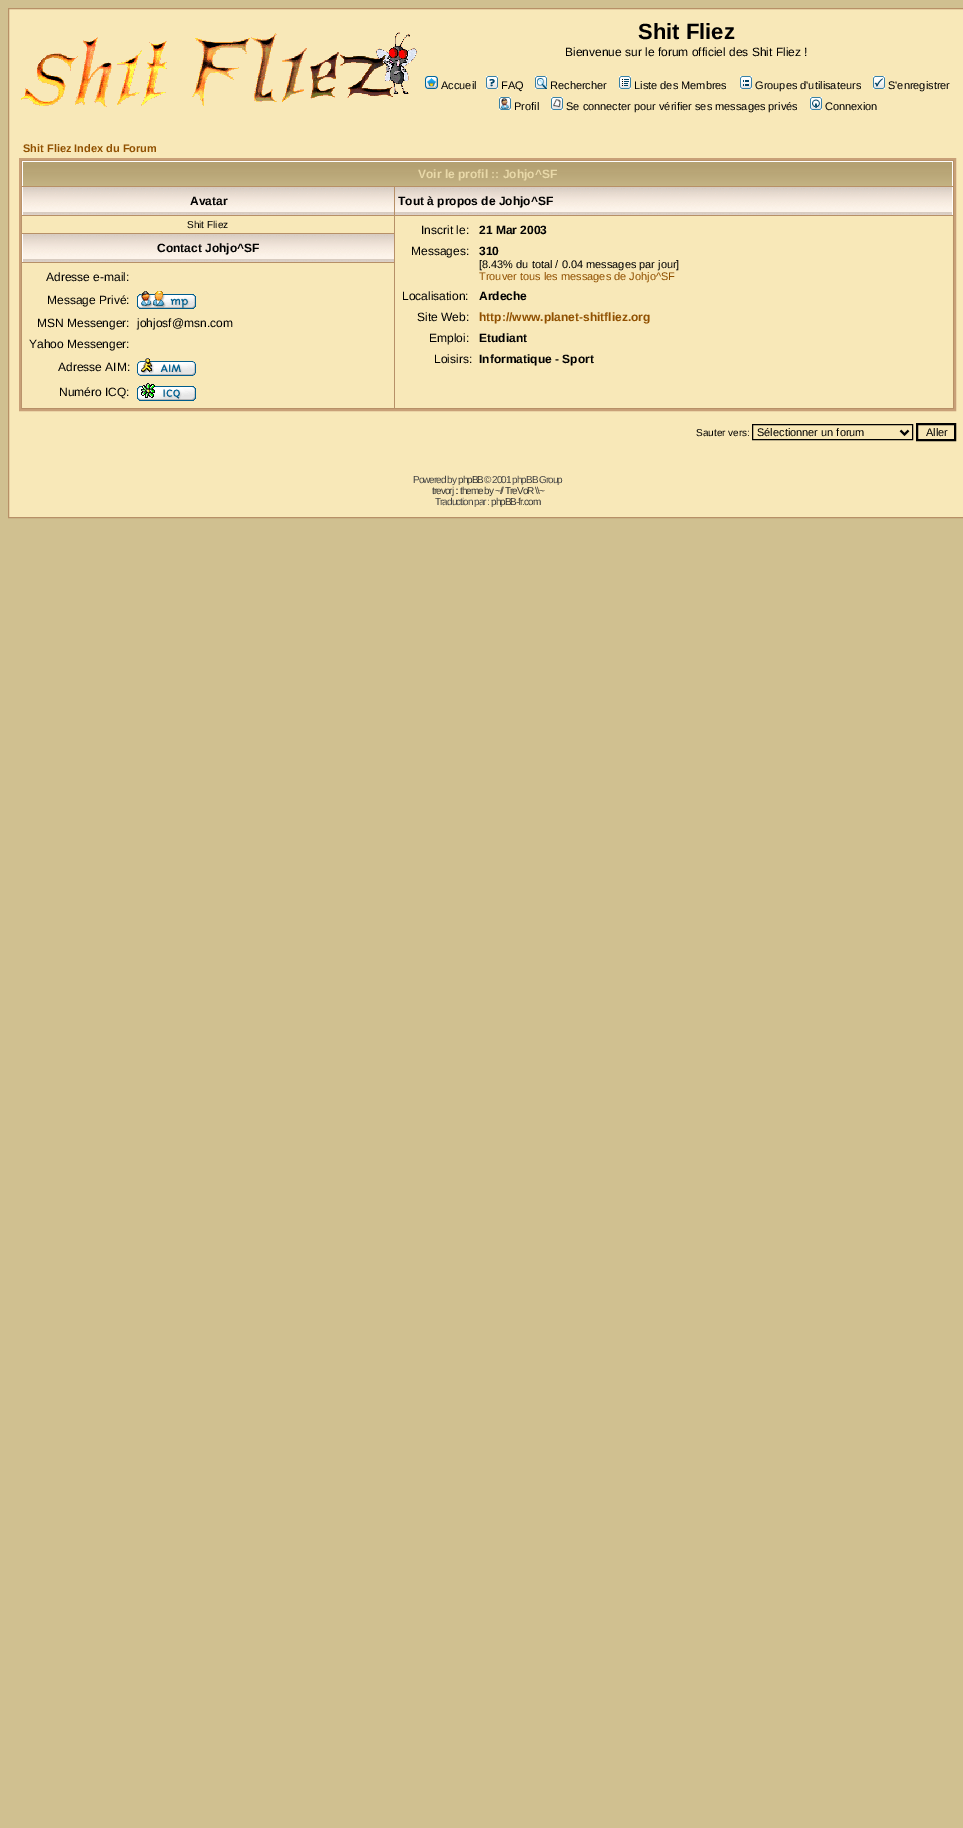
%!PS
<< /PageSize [963 1828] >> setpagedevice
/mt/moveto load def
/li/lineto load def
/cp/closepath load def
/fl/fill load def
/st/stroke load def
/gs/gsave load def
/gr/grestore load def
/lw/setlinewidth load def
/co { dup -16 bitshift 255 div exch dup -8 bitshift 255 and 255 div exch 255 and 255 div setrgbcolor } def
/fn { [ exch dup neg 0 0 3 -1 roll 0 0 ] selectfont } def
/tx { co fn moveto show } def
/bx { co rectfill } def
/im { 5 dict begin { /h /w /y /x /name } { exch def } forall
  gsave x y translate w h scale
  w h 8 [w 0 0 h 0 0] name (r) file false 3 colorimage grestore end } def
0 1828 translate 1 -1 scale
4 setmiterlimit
0 0 963 1828 16#D0C090 bx
16#F8E8B8 co
8.5 8.5 mt 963.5 8.5 li 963.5 517.5 li 8.5 517.5 li cp gs fl gr
16#B79067 co
st
(media/1.raw) 21 32 396 75 im
(media/2.raw) 425 76 13 13 im
(media/3.raw) 486 76 12 13 im
(media/4.raw) 535 76 12 13 im
(media/5.raw) 619 76 12 13 im
(media/6.raw) 740 76 12 13 im
(media/7.raw) 873 76 12 13 im
(media/8.raw) 499 97 12 13 im
(media/9.raw) 551 97 12 13 im
(media/10.raw) 810 97 12 13 im
20 159 mt 955 159 li 955 410 li 20 410 li cp gs fl gr
16#C8A078 co
2 lw
st
(media/11.raw) 23 162 929 24 im
22 161 931 1 16#FFFFFF bx
952 161 1 25 16#FFFFFF bx
22 161 1 25 16#FFFFFF bx
(media/12.raw) 23 187 371 28 im
22 187 1 28 16#FFFFFF bx
(media/13.raw) 395 187 557 28 im
952 187 1 28 16#FFFFFF bx
22 216 372 17 16#F8E8B8 bx
395 216 558 192 16#F8E8B8 bx
(media/12.raw) 23 234 371 28 im
22 234 1 28 16#FFFFFF bx
22 263 372 145 16#F8E8B8 bx
(media/14.raw) 137 291 59 18 im
(media/15.raw) 137 358 59 18 im
(media/16.raw) 137 383 59 18 im
16#000000 co
1 lw
752.5 424.5 160 15 rectstroke
2 lw
900.5 430.5 mt 904.5 434.5 li 908.5 430.5 li st
917 424 38 16 rectstroke
(Shit Fliez) 638 39 /LiberationSans-Bold 22 16#000000 tx
(Bienvenue sur le forum officiel des Shit Fliez !) 565 56 /LiberationSans-Regular 12 16#000000 tx
(Accueil) 441 89 /LiberationSans-Regular 11 16#000000 tx
(FAQ) 501 89 /LiberationSans-Regular 11 16#000000 tx
(Rechercher) 550 89 /LiberationSans-Regular 11 16#000000 tx
(Liste des Membres) 634 89 /LiberationSans-Regular 11 16#000000 tx
(Groupes d'utilisateurs) 755 89 /LiberationSans-Regular 11 16#000000 tx
(S'enregistrer) 888 89 /LiberationSans-Regular 11 16#000000 tx
(Profil) 514 110 /LiberationSans-Regular 11 16#000000 tx
(Se connecter pour vérifier ses messages privés) 566 110 /LiberationSans-Regular 11 16#000000 tx
(Connexion) 825 110 /LiberationSans-Regular 11 16#000000 tx
(Shit Fliez Index du Forum) 23 152 /LiberationSans-Bold 11 16#905000 tx
(Voir le profil :: Johjo^SF) 418 178 /LiberationSans-Bold 12 16#E9D9A9 tx
(Avatar) 190 205 /LiberationSans-Bold 12 16#000000 tx
(Tout à propos de Johjo^SF) 398 205 /LiberationSans-Bold 12 16#000000 tx
(Shit Fliez) 187 228 /LiberationSans-Regular 10 16#000000 tx
(Inscrit le:) 421 234 /LiberationSans-Regular 12 16#000000 tx
(21 Mar 2003) 479 234 /LiberationSans-Bold 12 16#000000 tx
(Messages:) 411 255 /LiberationSans-Regular 12 16#000000 tx
(310) 479 255 /LiberationSans-Bold 12 16#000000 tx
([8.43% du total / 0.04 messages par jour]) 479 268 /LiberationSans-Regular 11 16#000000 tx
(Trouver tous les messages de Johjo^SF) 479 280 /LiberationSans-Regular 11 16#905000 tx
(Localisation:) 402 300 /LiberationSans-Regular 12 16#000000 tx
(Ardeche) 479 300 /LiberationSans-Bold 12 16#000000 tx
(Site Web:) 417 321 /LiberationSans-Regular 12 16#000000 tx
(http://www.planet-shitfliez.org) 479 321 /LiberationSans-Bold 12 16#905000 tx
(Emploi:) 429 342 /LiberationSans-Regular 12 16#000000 tx
(Etudiant) 479 342 /LiberationSans-Bold 12 16#000000 tx
(Loisirs:) 434 363 /LiberationSans-Regular 12 16#000000 tx
(Informatique - Sport) 479 363 /LiberationSans-Bold 12 16#000000 tx
(Contact Johjo^SF) 157 252 /LiberationSans-Bold 12 16#000000 tx
(Adresse e-mail:) 46 281 /LiberationSans-Regular 12 16#000000 tx
(Message Privé:) 47 304 /LiberationSans-Regular 12 16#000000 tx
(MSN Messenger:) 37 327 /LiberationSans-Regular 12 16#000000 tx
(johjosf@msn.com) 137 327 /LiberationSans-Regular 12 16#000000 tx
(Yahoo Messenger:) 29 348 /LiberationSans-Regular 12 16#000000 tx
(Adresse AIM:) 58 371 /LiberationSans-Regular 12 16#000000 tx
(Numéro ICQ:) 59 396 /LiberationSans-Regular 12 16#000000 tx
(Sauter vers:) 696 436 /LiberationSans-Regular 10 16#000000 tx
(Sélectionner un forum) 757 436 /LiberationSans-Regular 11 16#000000 tx
(Aller) 926 436 /LiberationSans-Regular 11 16#000000 tx
/LiberationSans-Regular 10 fn
16#444444 co
413 483 mt -1 0 (Powered by) ashow
16#333333 co
458 483 mt -1 0 (phpBB) ashow
16#444444 co
484 483 mt -1 0 (© 2001 phpBB Group) ashow
16#333333 co
432 494 mt -1 0 (trevorj :: theme by ~// TreVoR \\\\~) ashow
16#444444 co
435 505 mt -1 0 (Traduction par :) ashow
16#333333 co
491 505 mt -1 0 (phpBB-fr.com) ashow
showpage
